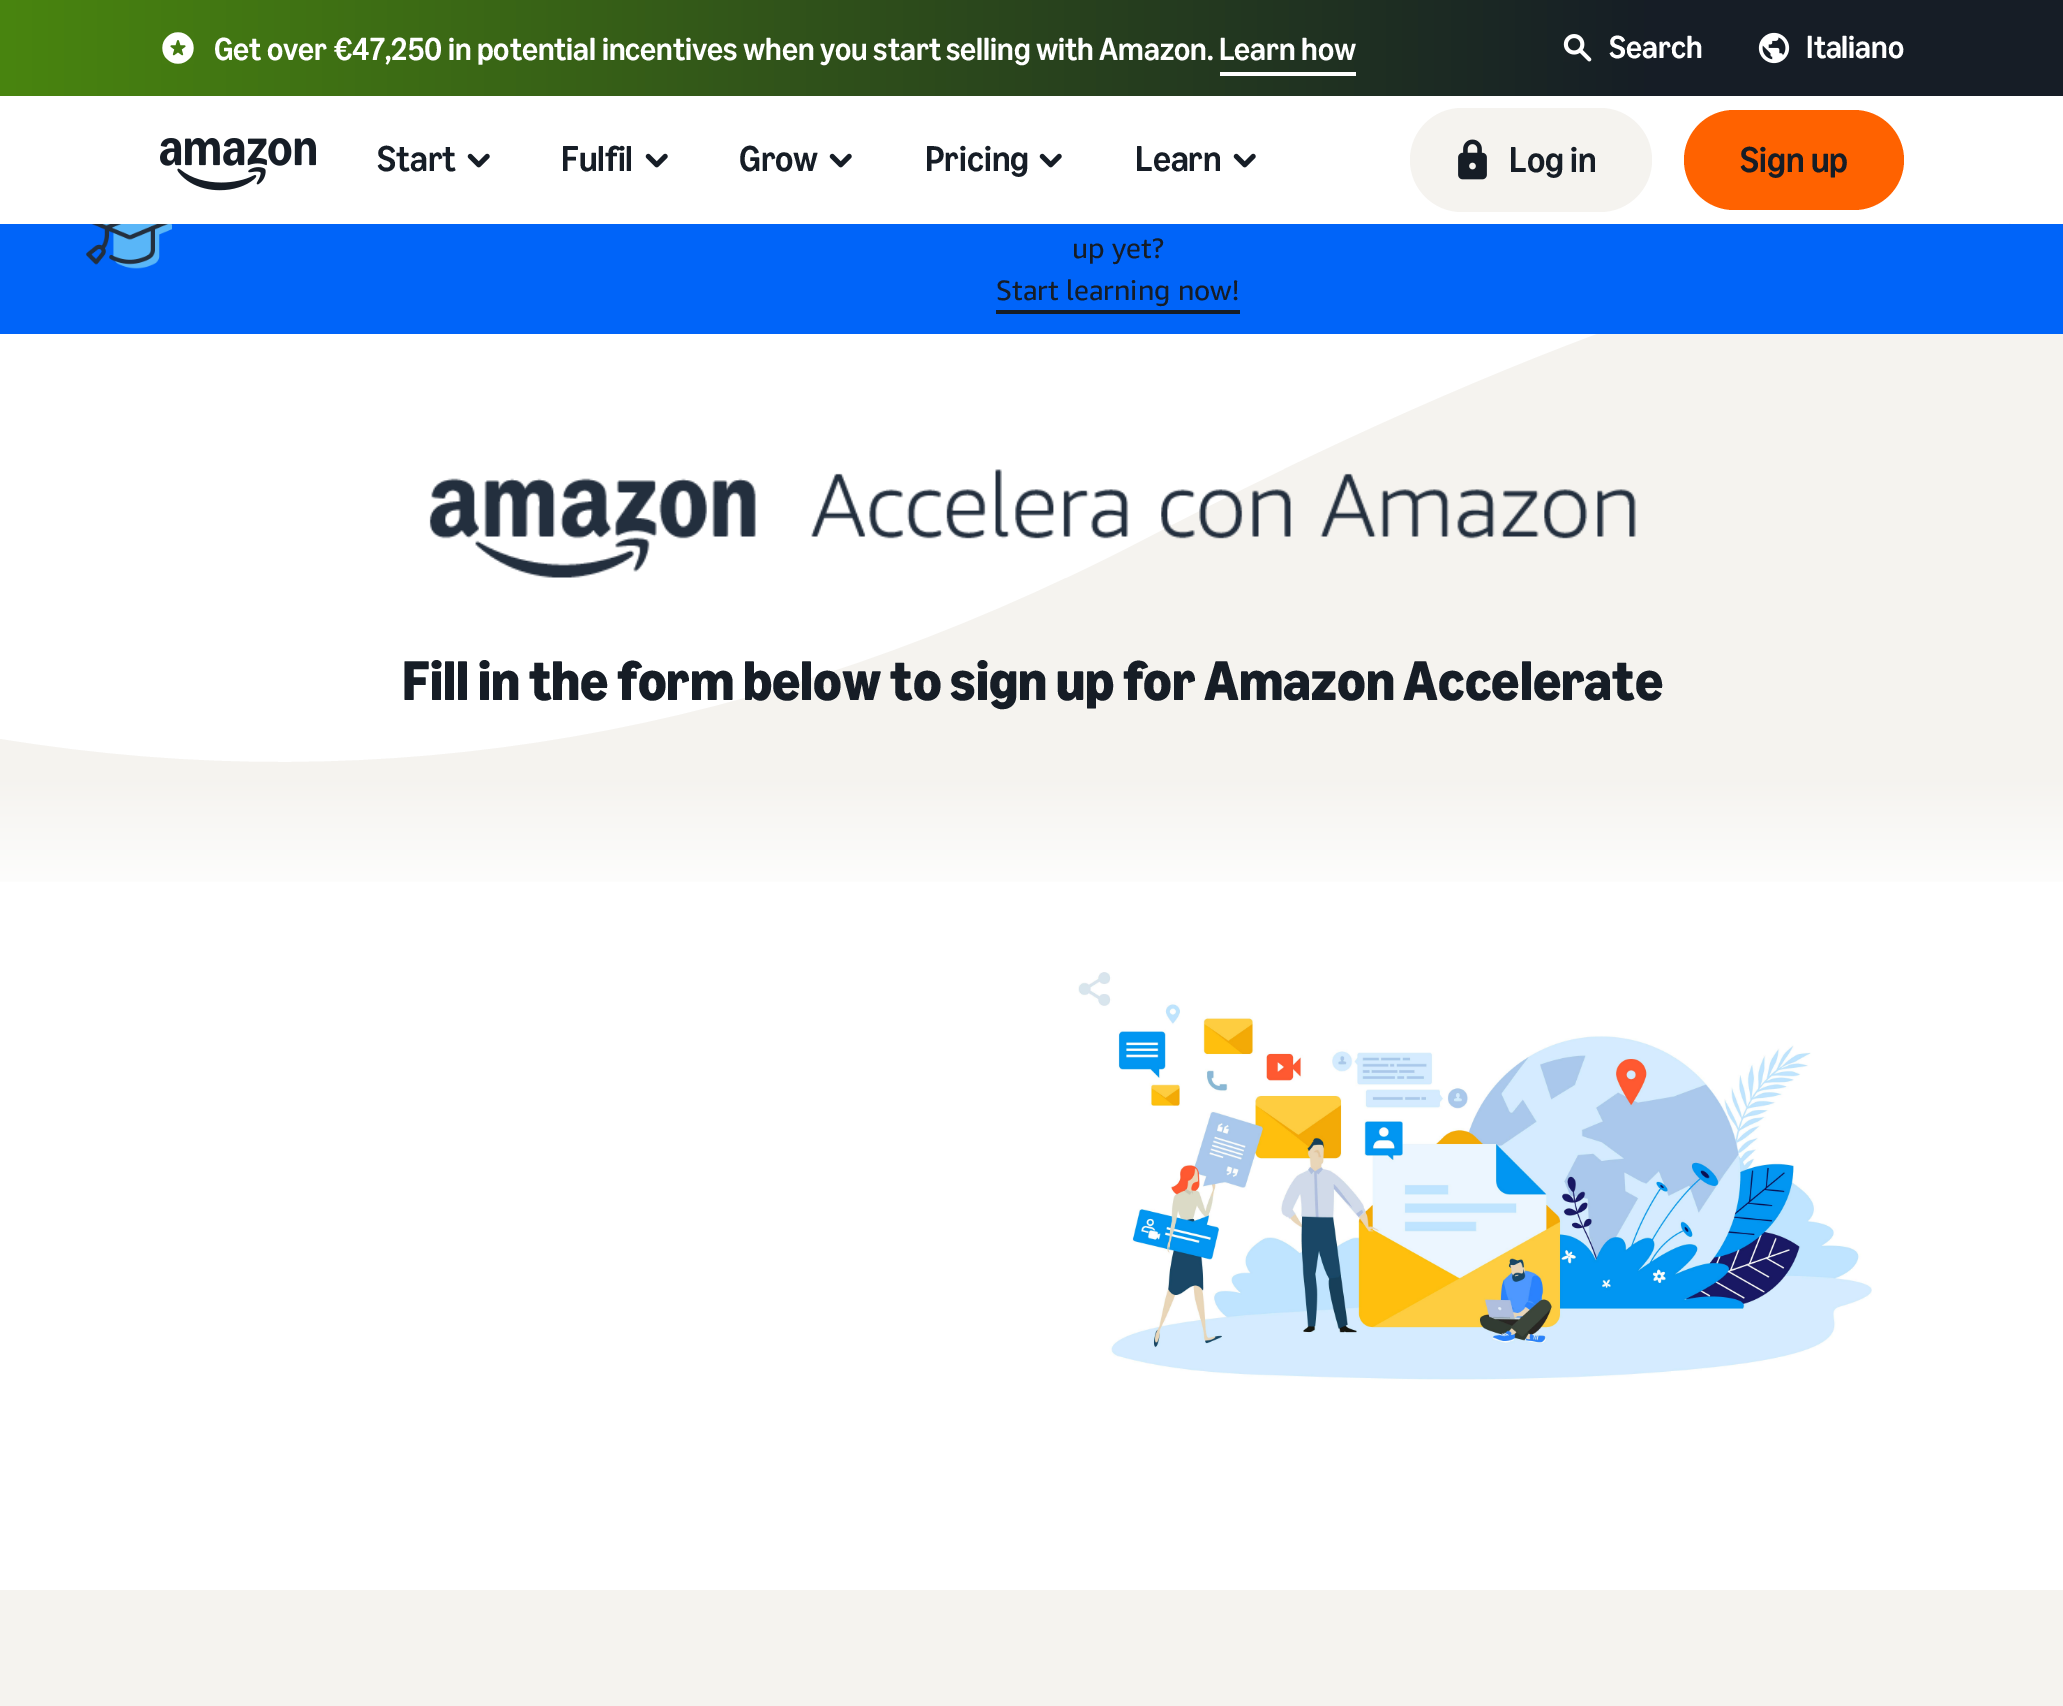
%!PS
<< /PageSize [2063 1706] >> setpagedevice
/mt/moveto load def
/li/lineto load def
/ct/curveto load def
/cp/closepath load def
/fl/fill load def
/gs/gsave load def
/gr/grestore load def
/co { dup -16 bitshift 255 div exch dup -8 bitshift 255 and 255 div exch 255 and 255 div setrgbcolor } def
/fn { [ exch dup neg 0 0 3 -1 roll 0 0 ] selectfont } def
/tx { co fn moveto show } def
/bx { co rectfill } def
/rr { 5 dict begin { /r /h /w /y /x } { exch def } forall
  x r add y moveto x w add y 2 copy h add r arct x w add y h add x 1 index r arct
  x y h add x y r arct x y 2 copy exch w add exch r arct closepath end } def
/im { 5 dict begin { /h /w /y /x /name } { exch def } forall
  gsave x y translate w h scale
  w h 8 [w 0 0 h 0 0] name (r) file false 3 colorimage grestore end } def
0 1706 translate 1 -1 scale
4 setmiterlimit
0 0 2063 1706 16#FFFFFF bx
gs 0 0 mt 2063 0 li 2063 96 li 0 96 li cp clip newpath
<< /ShadingType 2 /ColorSpace /DeviceRGB /Coords [0 48 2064 48] /Extend [true true] /Function << /FunctionType 3 /Domain [0 1] /Functions [<< /FunctionType 2 /Domain [0 1] /C0 [.286 .522 .059] /C1 [.086 .114 .149] /N 1 >> << /FunctionType 2 /Domain [0 1] /C0 [.086 .114 .149] /C1 [.086 .114 .149] /N 1 >>] /Bounds [.8] /Encode [0 1 0 1] >> >> shfill gr
(media/1.raw) 162 32 32 32 im
1220 72 136 4 16#FFFFFF bx
(media/2.raw) 1563 34 29 28 im
(media/3.raw) 1758 32 32 32 im
16#F5F3EF co
0 739 mt 384 802 764 736 1141 541 ct 1517 345 1825 238 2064 218 ct 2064 774 li 0 774 li cp eofill
2011 218 52 6 16#FFFFFF bx
(media/4.raw) 160 138 156 53 im
(media/5.raw) 467 153 23 15 im
(media/5.raw) 645 153 23 15 im
(media/5.raw) 829 153 23 15 im
(media/5.raw) 1039 153 23 15 im
(media/5.raw) 1233 153 23 15 im
16#F5F3EF co
1410 108 242 104 52 rr fl
(media/6.raw) 1458 139 29 41 im
16#FF6200 co
1684 110 220 100 50 rr fl
0 224 2063 110 16#0064F9 bx
(media/7.raw) 86 224 86 45 im
996 310 244 4 16#161D26 bx
(media/8.raw) 429 469 1207 109 im
gs 0 774 mt 2063 774 li 2063 882 li 0 882 li cp clip newpath
<< /ShadingType 2 /ColorSpace /DeviceRGB /Coords [1032 774 1032 902] /Extend [true true] /Function << /FunctionType 2 /Domain [0 1] /C0 [.961 .953 .937] /C1 [1 1 1] /N 1 >> >> shfill gr
(media/9.raw) 1078 972 794 408 im
0 1590 2063 116 16#F5F3EF bx
(Get over €47,250 in potential incentives when you start selling with Amazon. Learn how) 214 60 /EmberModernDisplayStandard-Medium 32 16#FFFFFF tx
(Search) 1609 58 /EmberModernDisplayStandard-Medium 32 16#FFFFFF tx
(Italiano) 1806 58 /EmberModernDisplayStandard-Medium 32 16#FFFFFF tx
(Start) 377 171 /EmberModernDisplayStandard-Medium 36 16#161D26 tx
(Fulfil) 561 171 /EmberModernDisplayStandard-Medium 36 16#161D26 tx
(Grow) 739 171 /EmberModernDisplayStandard-Medium 36 16#161D26 tx
(Pricing) 925 171 /EmberModernDisplayStandard-Medium 36 16#161D26 tx
(Learn) 1135 171 /EmberModernDisplayStandard-Medium 36 16#161D26 tx
(Log in) 1509 172 /EmberModernDisplayStandard-Medium 36 16#161D26 tx
(Sign up) 1740 172 /EmberModernDisplayStandard-Medium 36 16#161D26 tx
(up yet?) 1072 258 /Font-Regular 28 16#161D26 tx
(Start learning now!) 996 300 /Font-Regular 28 16#161D26 tx
(Fill in the form below to sign up for Amazon Accelerate) 402 700 /EmberModernDisplayStandard-Bold 56 16#161D26 tx
showpage
